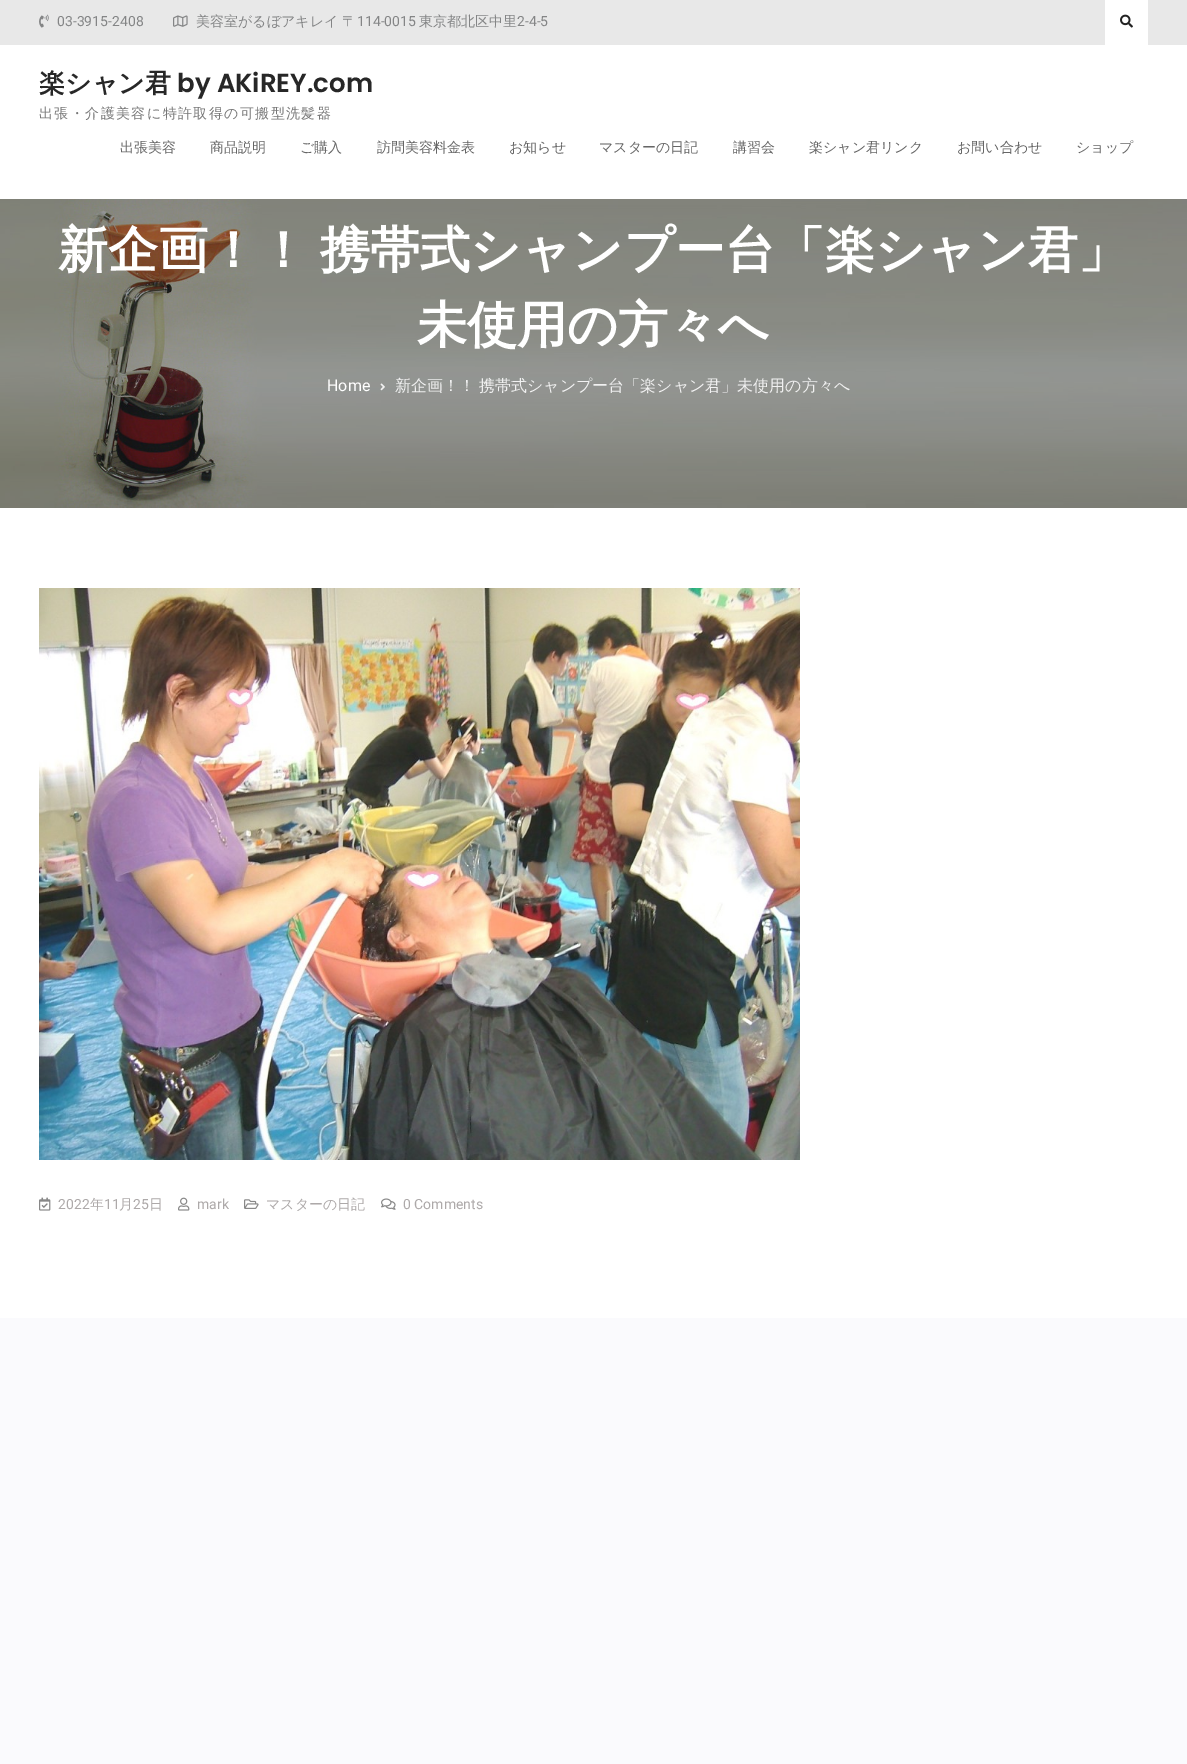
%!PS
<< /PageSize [1187 1764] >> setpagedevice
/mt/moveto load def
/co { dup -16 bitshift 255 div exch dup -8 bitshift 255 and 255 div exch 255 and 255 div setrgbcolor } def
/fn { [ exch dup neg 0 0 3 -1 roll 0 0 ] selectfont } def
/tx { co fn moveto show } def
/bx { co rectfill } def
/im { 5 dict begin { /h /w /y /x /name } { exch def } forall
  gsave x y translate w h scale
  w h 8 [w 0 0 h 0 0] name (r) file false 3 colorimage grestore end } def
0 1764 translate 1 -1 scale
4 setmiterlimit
0 0 1187 1764 16#FAFAFD bx
0 0 1187 45 16#E8E8E8 bx
(media/1.raw) 39 14 10 14 im
(media/2.raw) 173 15 15 12 im
1105 0 43 45 16#FFFFFF bx
(media/3.raw) 1120 14 13 14 im
0 45 1187 154 16#FFFFFF bx
(media/4.raw) 0 199 1187 309 im
(media/5.raw) 380 383 5 8 im
0 508 1187 810 16#FFFFFF bx
(media/6.raw) 39 588 761 572 im
(media/7.raw) 39 1197 12 14 im
(media/8.raw) 178 1197 12 14 im
(media/9.raw) 244 1199 15 10 im
(media/10.raw) 381 1198 15 12 im
(03-3915-2408) 57 26 /Roboto-Regular 14 16#848586 tx
(美容室がるぼアキレイ 〒) 196 26 /WenQuanYiZenHei-Medium 14 16#848586 tx
(114-0015) 357 26 /Roboto-Regular 14 16#848586 tx
(東京都北区中里) 419 26 /WenQuanYiZenHei-Medium 14 16#848586 tx
(2-4-5) 517 26 /Roboto-Regular 14 16#848586 tx
(楽シャン君) 39 92 /WenQuanYiZenHei-Bold 26 16#272727 tx
(by AKiREY.com) 177 92 /Poppins-SemiBold 26 16#272727 tx
/WenQuanYiZenHei-Medium 14 fn
16#777777 co
39 118 mt 1.4 0 (出張・介護美容に特許取得の可搬型洗髪器) ashow
(出張美容) 120 152 /WenQuanYiZenHei-Medium 14 16#666666 tx
(商品説明) 210 152 /WenQuanYiZenHei-Medium 14 16#666666 tx
(ご購入) 300 152 /WenQuanYiZenHei-Medium 14 16#666666 tx
(訪問美容料金表) 377 152 /WenQuanYiZenHei-Medium 14 16#666666 tx
(お知らせ) 509 152 /WenQuanYiZenHei-Medium 14 16#666666 tx
(マスターの日記) 599 152 /WenQuanYiZenHei-Medium 14 16#666666 tx
(講習会) 733 152 /WenQuanYiZenHei-Medium 14 16#666666 tx
(楽シャン君リンク) 809 152 /WenQuanYiZenHei-Medium 14 16#666666 tx
(お問い合わせ) 957 152 /WenQuanYiZenHei-Medium 14 16#666666 tx
(ショップ) 1076 152 /WenQuanYiZenHei-Medium 14 16#666666 tx
/WenQuanYiZenHei-Bold 50 fn
16#FFFFFF co
58 267 mt -3 0 32 (新企画！！ 携帯式シャンプー台「楽シャン君」) widthshow
(未使用の方々へ) 417 342 /WenQuanYiZenHei-Bold 50 16#FFFFFF tx
(Home) 327 391 /Roboto-Regular 16 16#FFFFFF tx
/WenQuanYiZenHei-Medium 16 fn
16#F1F1F1 co
395 391 mt -1 0 32 (新企画！！ 携帯式シャンプー台「楽シャン君」未使用の方々へ) widthshow
(2022) 58 1209 /Roboto-Regular 14 16#ADA9A9 tx
(年) 90 1209 /WenQuanYiZenHei-Medium 14 16#ADA9A9 tx
(11) 104 1209 /Roboto-Regular 14 16#ADA9A9 tx
(月) 119 1209 /WenQuanYiZenHei-Medium 14 16#ADA9A9 tx
(25) 133 1209 /Roboto-Regular 14 16#ADA9A9 tx
(日) 149 1209 /WenQuanYiZenHei-Medium 14 16#ADA9A9 tx
(mark) 197 1209 /Roboto-Regular 14 16#ADA9A9 tx
(マスターの日記) 266 1209 /WenQuanYiZenHei-Medium 14 16#ADA9A9 tx
(0 Comments) 403 1209 /Roboto-Regular 14 16#ADA9A9 tx
showpage
